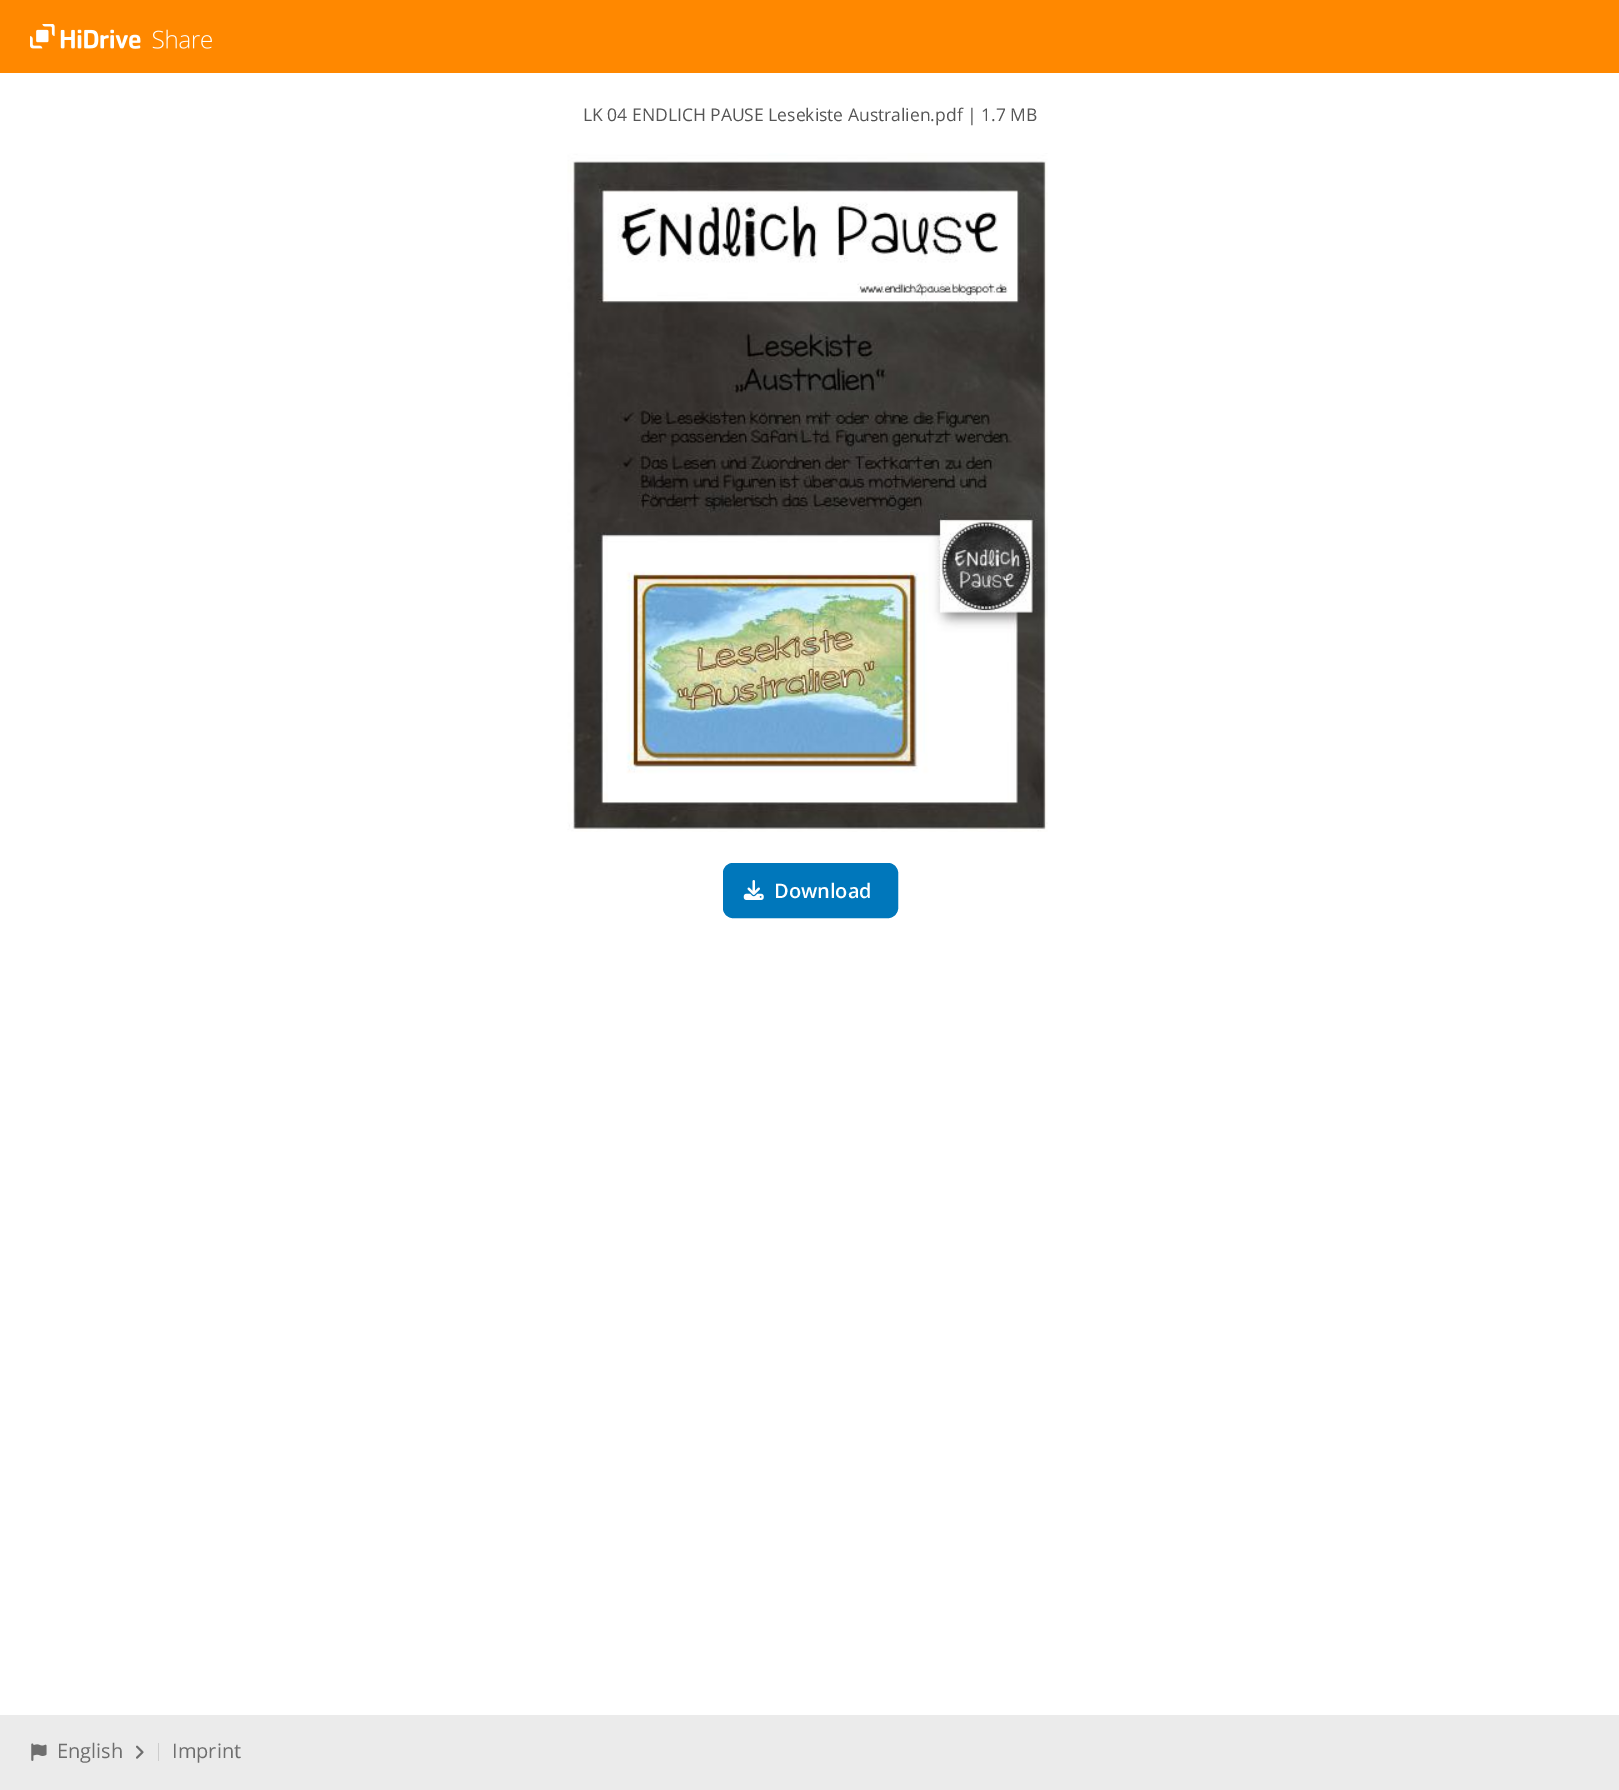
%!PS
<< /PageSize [1619 1790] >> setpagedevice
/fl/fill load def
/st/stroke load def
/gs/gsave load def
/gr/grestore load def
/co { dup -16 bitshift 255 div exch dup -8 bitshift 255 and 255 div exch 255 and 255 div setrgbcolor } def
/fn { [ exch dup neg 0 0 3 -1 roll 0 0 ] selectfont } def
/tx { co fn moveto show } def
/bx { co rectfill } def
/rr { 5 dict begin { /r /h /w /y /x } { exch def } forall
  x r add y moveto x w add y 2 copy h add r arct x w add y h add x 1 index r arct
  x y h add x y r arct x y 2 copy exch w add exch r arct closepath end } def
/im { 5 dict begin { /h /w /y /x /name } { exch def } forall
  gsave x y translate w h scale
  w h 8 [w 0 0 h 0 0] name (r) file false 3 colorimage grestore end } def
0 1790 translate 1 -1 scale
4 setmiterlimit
0 0 1619 1790 16#FFFFFF bx
0 0 1619 73 16#FF8800 bx
(media/1.raw) 30 24 182 25 im
(media/2.raw) 567 153 481 679 im
16#0077BB co
723.5 863.5 174 54 9.5 rr gs fl gr
st
(media/3.raw) 743 880 21 20 im
0 1715 1619 75 16#EBEBEB bx
(media/4.raw) 31 1743 16 18 im
(media/5.raw) 136 1745 8 14 im
158 1743 1 18 16#CCCCCC bx
(LK 04 ENDLICH PAUSE Lesekiste Australien.pdf | 1.7 MB) 583 121 /OpenSans-Regular 17.5 16#555555 tx
(Download) 774 898 /OpenSans-SemiBold 20 16#FFFFFF tx
(English) 57 1758 /OpenSans-Regular 20 16#6E6E6E tx
(Imprint) 172 1758 /OpenSans-Regular 20 16#6E6E6E tx
showpage
